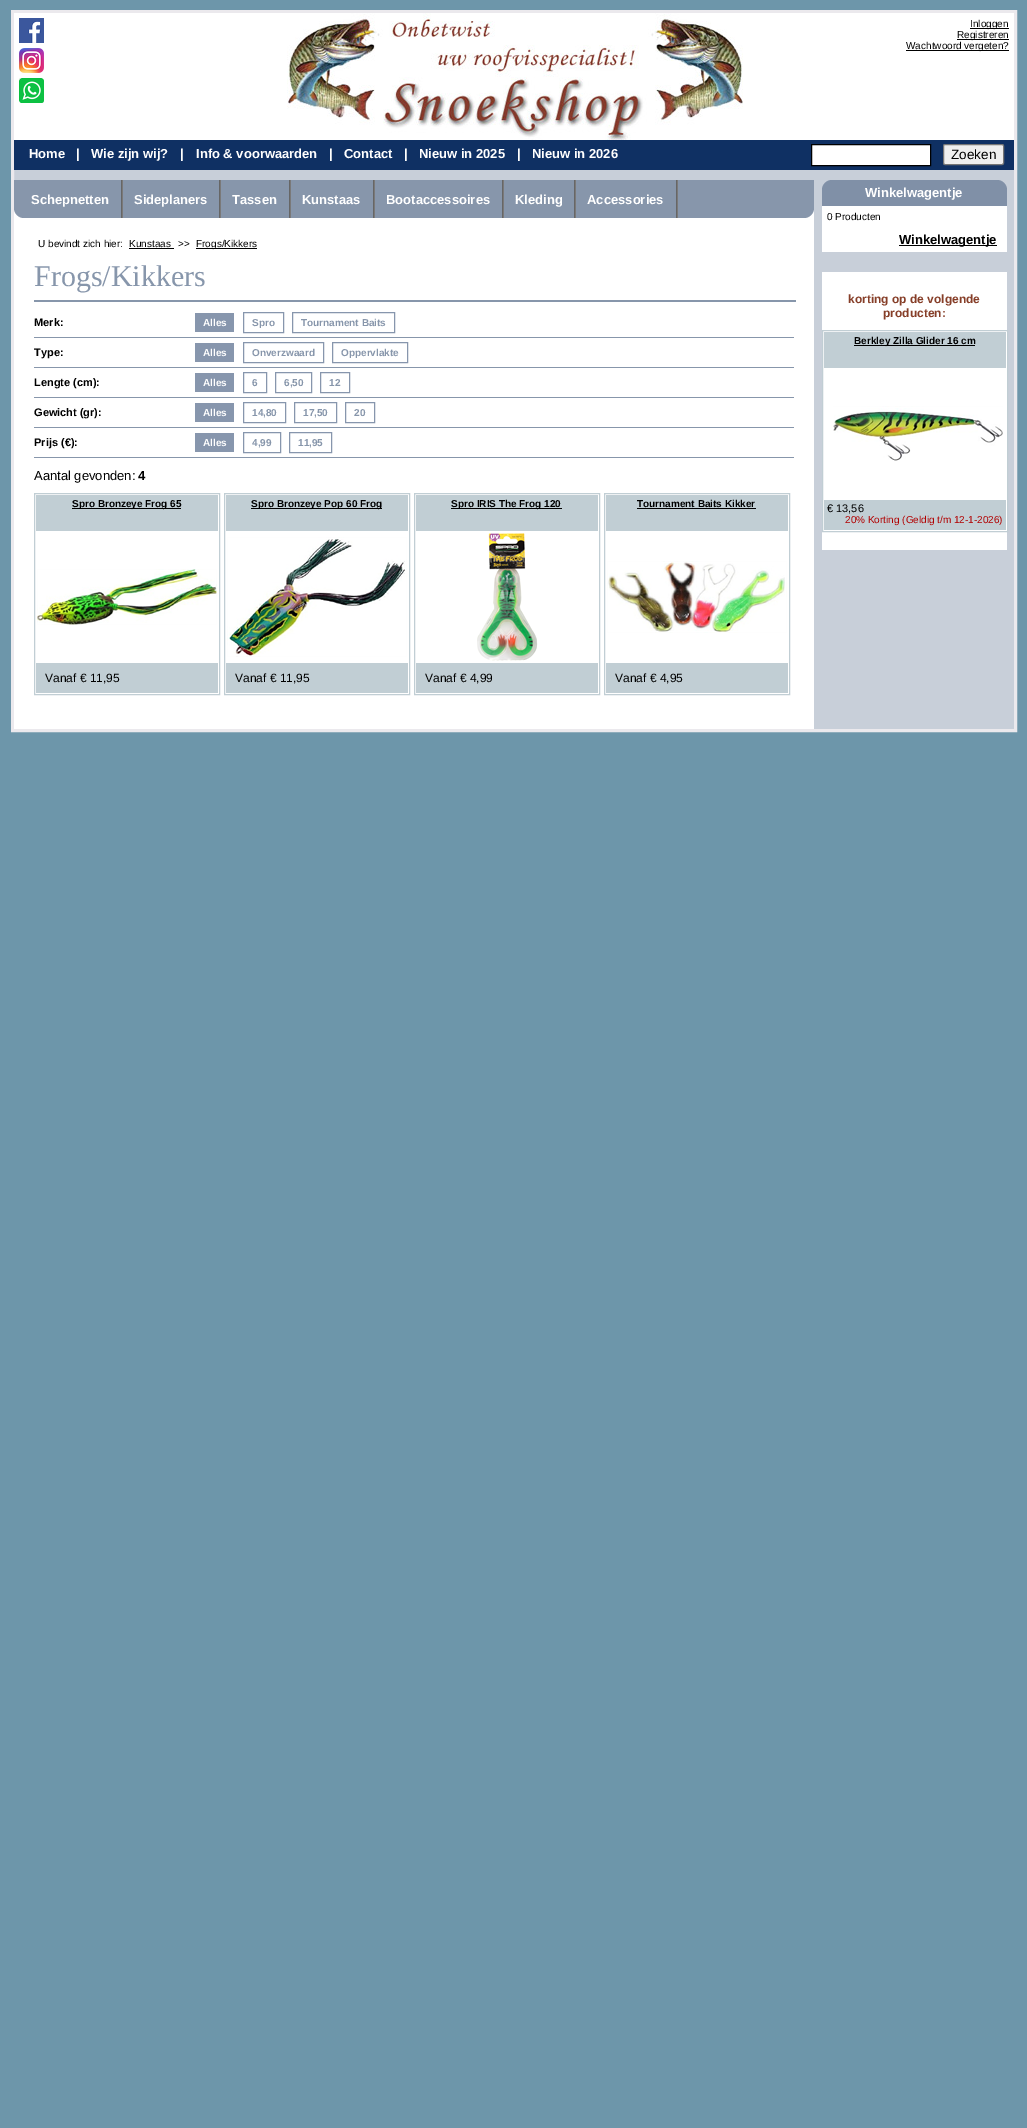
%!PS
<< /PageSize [1027 2128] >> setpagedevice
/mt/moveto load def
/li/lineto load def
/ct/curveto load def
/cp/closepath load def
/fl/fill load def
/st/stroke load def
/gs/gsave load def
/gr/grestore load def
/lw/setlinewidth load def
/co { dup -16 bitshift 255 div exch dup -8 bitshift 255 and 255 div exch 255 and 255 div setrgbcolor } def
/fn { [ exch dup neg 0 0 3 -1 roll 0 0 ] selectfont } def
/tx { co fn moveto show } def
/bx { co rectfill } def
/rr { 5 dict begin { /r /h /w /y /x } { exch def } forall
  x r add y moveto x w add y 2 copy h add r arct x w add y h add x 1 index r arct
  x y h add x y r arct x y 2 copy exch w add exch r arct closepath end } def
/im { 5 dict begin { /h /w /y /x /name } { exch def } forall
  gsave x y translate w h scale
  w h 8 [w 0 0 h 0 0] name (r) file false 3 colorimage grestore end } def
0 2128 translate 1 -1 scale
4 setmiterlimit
0 0 1027 2128 16#6D96AA bx
14 170 1000 559 16#C8CFD9 bx
16#EBE9ED co
3 lw
12.5 11.5 1003 719 rectstroke
14 13 1000 127 16#FFFFFF bx
(media/1.raw) 19 18 25 25 im
(media/2.raw) 19 48 25 25 im
(media/3.raw) 19 78 25 25 im
(media/4.raw) 287 13 456 127 im
970 28 39 1 16#000000 bx
957 39 52 1 16#000000 bx
906 50 103 1 16#000000 bx
14 140 1000 30 16#0F3063 bx
16#FFFFFF co
811.5 144.5 mt 930.5 144.5 li 930.5 165.5 li 811.5 165.5 li cp gs fl gr
16#000000 co
1 lw
st
16#EFEFEF co
943.5 144.5 60 20 1.5 rr gs fl gr
16#767676 co
st
14 208 800 521 16#FFFFFF bx
16#8796AB co
14 180 mt 814 180 li 814 208 li 814 213.5 809.5 218 804 218 ct 24 218 li 18.5 218 14 213.5 14 208 ct cp fl
(media/5.raw) 121 180 2 38 im
(media/5.raw) 219 180 2 38 im
(media/5.raw) 289 180 2 38 im
(media/5.raw) 373 180 2 38 im
(media/5.raw) 502 180 2 38 im
(media/5.raw) 574 180 2 38 im
(media/5.raw) 676 180 2 38 im
129 248 45 1 16#000000 bx
196 248 61 1 16#000000 bx
34 300 762 2 16#8796AB bx
34 337 760 1 16#8796AB bx
195 313 39 19 16#8796AD bx
243.5 312.5 40 20 rectstroke
292.5 312.5 102 20 rectstroke
34 367 760 1 16#8796AB bx
195 343 39 19 16#8796AD bx
243.5 342.5 80 20 rectstroke
332.5 342.5 75 20 rectstroke
34 397 760 1 16#8796AB bx
195 373 39 19 16#8796AD bx
243.5 372.5 23 20 rectstroke
275.5 372.5 36 20 rectstroke
320.5 372.5 29 20 rectstroke
34 427 760 1 16#8796AB bx
195 403 39 19 16#8796AD bx
243.5 402.5 42 20 rectstroke
294.5 402.5 42 20 rectstroke
345.5 402.5 29 20 rectstroke
34 457 760 1 16#8796AB bx
195 433 39 19 16#8796AD bx
243.5 432.5 37 20 rectstroke
289.5 432.5 42 20 rectstroke
16#C1CED4 co
34.5 493.5 185 201 rectstroke
36 495 182 36 16#C1CED4 bx
72 508 109 1 16#000000 bx
(media/6.raw) 37 569 180 56 im
36 663 182 30 16#C1CED4 bx
224.5 493.5 185 201 rectstroke
226 495 182 36 16#C1CED4 bx
251 508 131 1 16#000000 bx
(media/7.raw) 227 537 180 120 im
226 663 182 30 16#C1CED4 bx
414.5 493.5 185 201 rectstroke
416 495 182 36 16#C1CED4 bx
451 508 111 1 16#000000 bx
(media/8.raw) 477 533 61 128 im
416 663 182 30 16#C1CED4 bx
604.5 493.5 185 201 rectstroke
606 495 182 36 16#C1CED4 bx
637 508 119 1 16#000000 bx
(media/9.raw) 607 561 180 72 im
606 663 182 30 16#C1CED4 bx
16#8090A7 co
832 180 mt 997 180 li 1002.5 180 1007 184.5 1007 190 ct 1007 206 li 822 206 li 822 190 li 822 184.5 826.5 180 832 180 ct cp fl
822 206 185 46 16#FFFFFF bx
899 245 98 1 16#000000 bx
822 272 185 278 16#FFFFFF bx
16#C1CED4 co
822.5 330.5 185 201 rectstroke
824 332 182 36 16#C1CED4 bx
854 345 121 1 16#000000 bx
(media/10.raw) 833 406 170 55 im
824 500 182 30 16#C1CED4 bx
(Inloggen) 970 27 /LiberationSans-Regular 10 16#000000 tx
(Registreren) 957 38 /LiberationSans-Regular 10 16#000000 tx
(Wachtwoord vergeten?) 906 49 /LiberationSans-Regular 10 16#000000 tx
(Home) 29 158 /LiberationSans-Bold 13 16#FFFFFF tx
(|) 76 158 /LiberationSans-Bold 13 16#FFFFFF tx
(Wie zijn wij?) 91 158 /LiberationSans-Bold 13 16#FFFFFF tx
(|) 180 158 /LiberationSans-Bold 13 16#FFFFFF tx
(Info & voorwaarden) 196 158 /LiberationSans-Bold 13 16#FFFFFF tx
(|) 329 158 /LiberationSans-Bold 13 16#FFFFFF tx
(Contact) 344 158 /LiberationSans-Bold 13 16#FFFFFF tx
(|) 404 158 /LiberationSans-Bold 13 16#FFFFFF tx
(Nieuw in 2025) 419 158 /LiberationSans-Bold 13 16#FFFFFF tx
(|) 517 158 /LiberationSans-Bold 13 16#FFFFFF tx
(Nieuw in 2026) 532 158 /LiberationSans-Bold 13 16#FFFFFF tx
(Zoeken) 951 159 /LiberationSans-Regular 13.5 16#000000 tx
(Schepnetten) 31 204 /LiberationSans-Bold 13 16#FFFFFF tx
(Sideplaners) 134 204 /LiberationSans-Bold 13 16#FFFFFF tx
(Tassen) 232 204 /LiberationSans-Bold 13 16#FFFFFF tx
(Kunstaas) 302 204 /LiberationSans-Bold 13 16#FFFFFF tx
(Bootaccessoires) 386 204 /LiberationSans-Bold 13 16#FFFFFF tx
(Kleding) 515 204 /LiberationSans-Bold 13 16#FFFFFF tx
(Accessories) 587 204 /LiberationSans-Bold 13 16#FFFFFF tx
(U bevindt zich hier:) 38 247 /LiberationSans-Regular 10 16#000000 tx
(Kunstaas) 129 247 /LiberationSans-Regular 10 16#000000 tx
(>>) 178 247 /LiberationSans-Regular 10 16#000000 tx
(Frogs/Kikkers) 196 247 /LiberationSans-Regular 10 16#000000 tx
(Frogs/Kikkers) 34 286 /LiberationSerif-Regular 30 16#8796AB tx
(Merk:) 34 326 /LiberationSans-Bold 11 16#000000 tx
(Alles) 203 326 /LiberationSans-Bold 10 16#FFFFFF tx
(Spro) 252 326 /LiberationSans-Bold 10 16#8796AB tx
(Tournament Baits) 301 326 /LiberationSans-Bold 10 16#8796AB tx
(Type:) 34 356 /LiberationSans-Bold 11 16#000000 tx
(Alles) 203 356 /LiberationSans-Bold 10 16#FFFFFF tx
(Onverzwaard) 252 356 /LiberationSans-Bold 10 16#8796AB tx
(Oppervlakte) 341 356 /LiberationSans-Bold 10 16#8796AB tx
(Lengte \(cm\):) 34 386 /LiberationSans-Bold 11 16#000000 tx
(Alles) 203 386 /LiberationSans-Bold 10 16#FFFFFF tx
(6) 252 386 /LiberationSans-Bold 10 16#8796AB tx
(6,50) 284 386 /LiberationSans-Bold 10 16#8796AB tx
(12) 329 386 /LiberationSans-Bold 10 16#8796AB tx
(Gewicht \(gr\):) 34 416 /LiberationSans-Bold 11 16#000000 tx
(Alles) 203 416 /LiberationSans-Bold 10 16#FFFFFF tx
(14,80) 252 416 /LiberationSans-Bold 10 16#8796AB tx
(17,50) 303 416 /LiberationSans-Bold 10 16#8796AB tx
(20) 354 416 /LiberationSans-Bold 10 16#8796AB tx
(Prijs \(€\):) 34 446 /LiberationSans-Bold 11 16#000000 tx
(Alles) 203 446 /LiberationSans-Bold 10 16#FFFFFF tx
(4,99) 252 446 /LiberationSans-Bold 10 16#8796AB tx
(11,95) 298 446 /LiberationSans-Bold 10 16#8796AB tx
(Aantal gevonden:) 34 480 /LiberationSans-Regular 13 16#000000 tx
(4) 138 480 /LiberationSans-Bold 13 16#000000 tx
(Spro Bronzeye Frog 65) 72 507 /LiberationSans-Bold 10 16#000000 tx
(Vanaf € 11,95) 45 682 /LiberationSans-Regular 12 16#000000 tx
(Spro Bronzeye Pop 60 Frog) 251 507 /LiberationSans-Bold 10 16#000000 tx
(Vanaf € 11,95) 235 682 /LiberationSans-Regular 12 16#000000 tx
(Spro IRIS The Frog 120) 451 507 /LiberationSans-Bold 10 16#000000 tx
(Vanaf € 4,99) 425 682 /LiberationSans-Regular 12 16#000000 tx
(Tournament Baits Kikker) 637 507 /LiberationSans-Bold 10 16#000000 tx
(Vanaf € 4,95) 615 682 /LiberationSans-Regular 12 16#000000 tx
(Winkelwagentje) 865 197 /LiberationSans-Bold 13 16#FFFFFF tx
(0 Producten) 827 220 /LiberationSans-Regular 10 16#000000 tx
(Winkelwagentje) 899 244 /LiberationSans-Bold 13 16#000000 tx
(korting op de volgende) 848 303 /LiberationSans-Bold 12 16#863E28 tx
(producten:) 883 317 /LiberationSans-Bold 12 16#863E28 tx
(Berkley Zilla Glider 16 cm) 854 344 /LiberationSans-Bold 10 16#000000 tx
(€ 13,56) 827 512 /LiberationSans-Regular 11 16#000000 tx
(20% Korting \(Geldig t/m 12-1-2026\)) 845 523 /LiberationSans-Regular 10 16#B20000 tx
showpage
